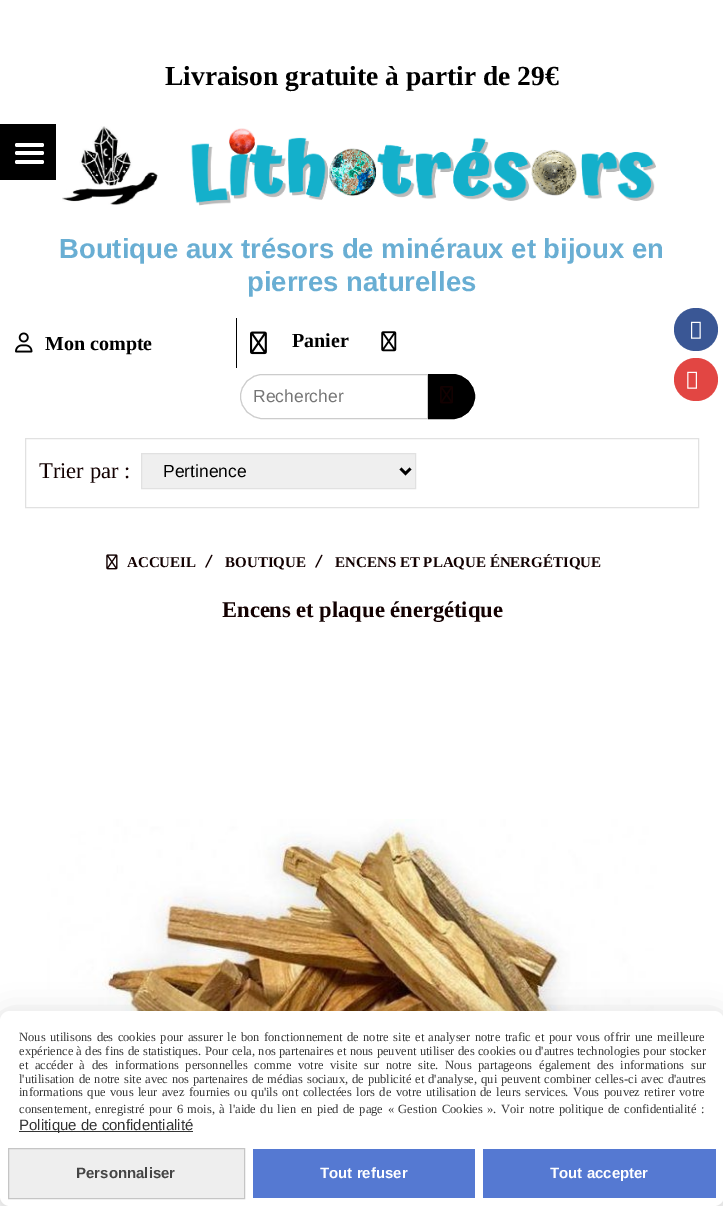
%!PS
<< /PageSize [723 1206] /PageUsesTransparency true >> setpagedevice
/mt/moveto load def
/li/lineto load def
/ct/curveto load def
/cp/closepath load def
/fl/fill load def
/st/stroke load def
/gs/gsave load def
/gr/grestore load def
/lw/setlinewidth load def
/co { dup -16 bitshift 255 div exch dup -8 bitshift 255 and 255 div exch 255 and 255 div setrgbcolor } def
/fn { [ exch dup neg 0 0 3 -1 roll 0 0 ] selectfont } def
/tx { co fn moveto show } def
/bx { co rectfill } def
/al { dup .setfillconstantalpha .setstrokeconstantalpha } def
/rr { 5 dict begin { /r /h /w /y /x } { exch def } forall
  x r add y moveto x w add y 2 copy h add r arct x w add y h add x 1 index r arct
  x y h add x y r arct x y 2 copy exch w add exch r arct closepath end } def
/sh { 12 dict begin { /a /b /q /h /w /y /x } { exch def } forall gsave /was 0 def
  9 -2 -9 { dup b mul 4 div /e exch def 1 sub .425 mul 2.718 exch exp 1 add a .99 .min exch div /now exch def
    1 1 now sub 1 was sub div sub al /was now def
    w h .min e 2 mul add 0 gt { x e sub y e sub w e 2 mul add h e 2 mul add
      q e add b .6 mul add w h .min 2 div e add .min 0 .max rr fill } if } for grestore end } def
/im { 5 dict begin { /h /w /y /x /name } { exch def } forall
  gsave x y translate w h scale
  w h 8 [w 0 0 h 0 0] name (r) file false 3 colorimage grestore end } def
0 .pushpdf14devicefilter
0 1206 translate 1 -1 scale
4 setmiterlimit
0 0 723 1206 16#FFFFFF bx
0 124 56 56 16#000000 bx
16#FFFFFF co
15 143 29 4 2 rr fl
15 151 29 4 2 rr fl
15 160 29 4 2 rr fl
(media/1.raw) 62 126 594 80 im
236 318 1 50 16#000000 bx
(media/2.raw) 15 332 18 21 im
(media/3.raw) 250 331 17 24 im
(media/4.raw) 381 331 16 21 im
16#CCCCCC co
262.5 374.5 mt 427.5 374.5 li 427.5 418.5 li 262.5 418.5 li 250.5 418.5 240.5 408.5 240.5 396.5 ct 240.5 384.5 250.5 374.5 262.5 374.5 ct cp st
16#000000 co
428.5 374.5 mt 452.5 374.5 li 464.5 374.5 474.5 384.5 474.5 396.5 ct 474.5 408.5 464.5 418.5 452.5 418.5 ct 428.5 418.5 li cp gs fl gr
st
(media/5.raw) 440 386 13 18 im
16#E1E1E1 co
25.5 438.5 673 69 rectstroke
16#EFEFEF co
141.5 453.5 mt 415.5 453.5 li 415.5 488.5 li 141.5 488.5 li cp gs fl gr
16#E1E1E1 co
st
16#000000 co
2.5 lw
400.5 468.5 mt 405.5 473.5 li 410.5 468.5 li st
(media/6.raw) 106 554 12 16 im
(media/7.raw) 47 819 610 192 im
16#3A5795 co
674 308 44 43 21.5 rr fl
(media/8.raw) 691 321 10 18 im
16#E24643 co
674 358 44 43 21.5 rr fl
(media/9.raw) 687 371 10 18 im
16#000000 co
0 1014 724 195 10 4 .05 sh
0 1016 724 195 10 15 .15 sh
16#FFFFFF co
0 1011 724 195 10 rr fl
19 1131 174 1 16#333333 bx
16#EEEEEE co
8.5 1148.5 mt 244.5 1148.5 li 244.5 1198.5 li 8.5 1198.5 li cp gs fl gr
16#C5C5C5 co
1 lw
st
253 1149 222 49 16#5579D2 bx
483 1149 233 49 16#5579D2 bx
(Livraison gratuite à partir de 29€) 165 85 /LiberationSerif-Bold 27.5 16#000000 tx
(Boutique aux trésors de minéraux et bijoux en) 59 258 /LiberationSans-Bold 27.5 16#69AED3 tx
(pierres naturelles) 247 291 /LiberationSans-Bold 27.5 16#69AED3 tx
(Mon compte) 45 350 /LiberationSerif-Bold 20 16#000000 tx
(Panier) 292 347 /LiberationSerif-Bold 20 16#000000 tx
(Rechercher) 253 402 /LiberationSans-Regular 17.5 16#757575 tx
(Trier par :) 39 478 /LiberationSerif-Regular 22.5 16#130101 tx
(Pertinence) 163 477 /LiberationSans-Regular 17.5 16#000000 tx
(ACCUEIL) 127 567 /LiberationSerif-Bold 15 16#130101 tx
(/) 205 567 /Dosis-Bold 16 16#130101 tx
(BOUTIQUE) 225 567 /LiberationSerif-Bold 15 16#130101 tx
(/) 315 567 /Dosis-Bold 16 16#130101 tx
(ENCENS ET PLAQUE ÉNERGÉTIQUE) 335 567 /LiberationSerif-Bold 15 16#130101 tx
(Encens et plaque énergétique) 222 617 /LiberationSerif-Bold 22.5 16#130101 tx
/LiberationSerif-Regular 12.5 fn
16#333333 co
19 1041 mt 1.3 0 32 (Nous utilisons des cookies pour assurer le bon fonctionnement de notre site et analyser notre trafic et pour vous offrir une meilleure) widthshow
19 1055 mt .25 0 32 (expérience à des fins de statistiques. Pour cela, nos partenaires et nous peuvent utiliser des cookies ou d'autres technologies pour stocker) widthshow
19 1069 mt 3.5 0 32 (et accéder à des informations personnelles comme votre visite sur notre site. Nous partageons également des informations sur) widthshow
19 1083 mt .75 0 32 (l'utilisation de notre site avec nos partenaires de médias sociaux, de publicité et d'analyse, qui peuvent combiner celles-ci avec d'autres) widthshow
19 1096 mt 1.3 0 32 (informations que vous leur avez fournies ou qu'ils ont collectées lors de votre utilisation de leurs services. Vous pouvez retirer votre) widthshow
19 1113 mt 1.4 0 32 (consentement, enregistré pour 6 mois, à l'aide du lien en pied de page « Gestion Cookies ». Voir notre politique de confidentialité :) widthshow
(Politique de confidentialité) 19 1130 /LiberationSans-Regular 15 16#333333 tx
(Personnaliser) 76 1178 /LiberationSans-Bold 15 16#444444 tx
(Tout refuser) 320 1178 /LiberationSans-Bold 15 16#FFFFFF tx
(Tout accepter) 550 1178 /LiberationSans-Bold 15 16#FFFFFF tx
.poppdf14devicefilter showpage
